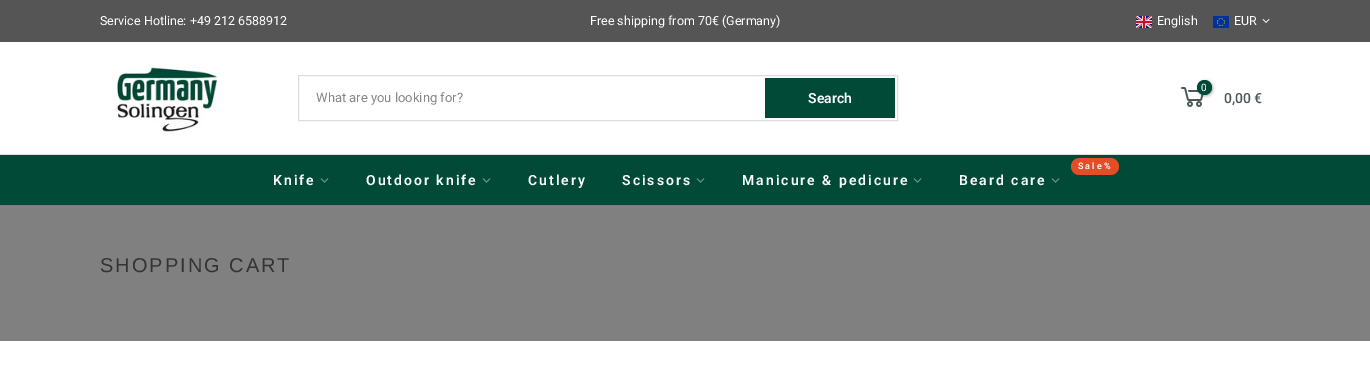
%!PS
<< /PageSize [1370 390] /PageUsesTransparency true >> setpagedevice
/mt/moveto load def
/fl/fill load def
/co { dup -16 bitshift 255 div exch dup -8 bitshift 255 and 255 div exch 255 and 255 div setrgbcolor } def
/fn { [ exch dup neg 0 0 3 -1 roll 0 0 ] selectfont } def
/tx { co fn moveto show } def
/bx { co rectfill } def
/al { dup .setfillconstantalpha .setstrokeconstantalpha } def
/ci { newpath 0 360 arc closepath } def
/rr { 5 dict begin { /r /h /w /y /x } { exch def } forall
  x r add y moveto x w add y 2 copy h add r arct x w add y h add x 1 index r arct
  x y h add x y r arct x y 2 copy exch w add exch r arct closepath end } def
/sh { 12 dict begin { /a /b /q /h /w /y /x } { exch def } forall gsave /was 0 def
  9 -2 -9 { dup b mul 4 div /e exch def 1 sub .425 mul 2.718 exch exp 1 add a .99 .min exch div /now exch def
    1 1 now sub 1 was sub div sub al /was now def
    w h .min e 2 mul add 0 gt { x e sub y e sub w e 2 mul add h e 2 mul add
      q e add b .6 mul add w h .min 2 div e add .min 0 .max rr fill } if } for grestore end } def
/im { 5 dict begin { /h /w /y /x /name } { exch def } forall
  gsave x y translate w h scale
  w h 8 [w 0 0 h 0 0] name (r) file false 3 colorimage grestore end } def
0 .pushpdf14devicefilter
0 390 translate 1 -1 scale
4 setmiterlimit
0 0 1370 390 16#FFFFFF bx
0 0 1370 42 16#555555 bx
(media/1.raw) 1136 16 16 12 im
(media/2.raw) 1213 16 16 12 im
(media/3.raw) 1262 19 8 4 im
(media/4.raw) 116 67 102 65 im
16#DDDDDD co
298.5 75.5 599 45 rectstroke
765 78 130 40 16#004A37 bx
(media/5.raw) 1181 87 23 20 im
16#000000 co
1198 81 15 15 7.5 1.5 .3 sh
16#004A37 co
1204.5 87.5 7.5 ci fl
0 155 1370 50 16#004A37 bx
0 154 1370 1 16#DDDDDD bx
16#E54D26 co
1071 158 48 17 8.5 rr fl
(media/6.raw) 320 178 9 5 im
(media/6.raw) 482 178 9 5 im
(media/6.raw) 696 178 9 5 im
(media/6.raw) 913 178 9 5 im
(media/6.raw) 1051 178 9 5 im
0 205 1370 136 16#808080 bx
(Service Hotline: +49 212 6588912) 100 25 /Roboto-Regular 12.5 16#FFFFFF tx
(Free shipping from 70€ \(Germany\)) 590 25 /Roboto-Regular 12.5 16#FFFFFF tx
(English) 1157 25 /Roboto-Regular 12.5 16#FFFFFF tx
(EUR) 1234 25 /Roboto-Regular 12.5 16#FFFFFF tx
(What are you looking for?) 316 102 /Roboto-Regular 13 16#878787 tx
(Search) 808 103 /Roboto-SemiBold 14 16#FFFFFF tx
(0) 1201 91 /Roboto-Regular 10 16#FFFFFF tx
(0,00 €) 1224 103 /Roboto-Medium 14 16#4D5959 tx
/Roboto-SemiBold 9 fn
16#FFFFFF co
1078 169 mt 2 0 (Sale%) ashow
/Roboto-SemiBold 14 fn
273 185 mt 2 0 (Knife) ashow
366 185 mt 2 0 (Outdoor knife) ashow
528 185 mt 2 0 (Cutlery) ashow
622 185 mt 2 0 (Scissors) ashow
742 185 mt 2 0 (Manicure & pedicure) ashow
959 185 mt 2 0 (Beard care) ashow
/LiberationSans-Regular 20 fn
16#333333 co
100 272 mt 2 0 (SHOPPING CART) ashow
.poppdf14devicefilter showpage
